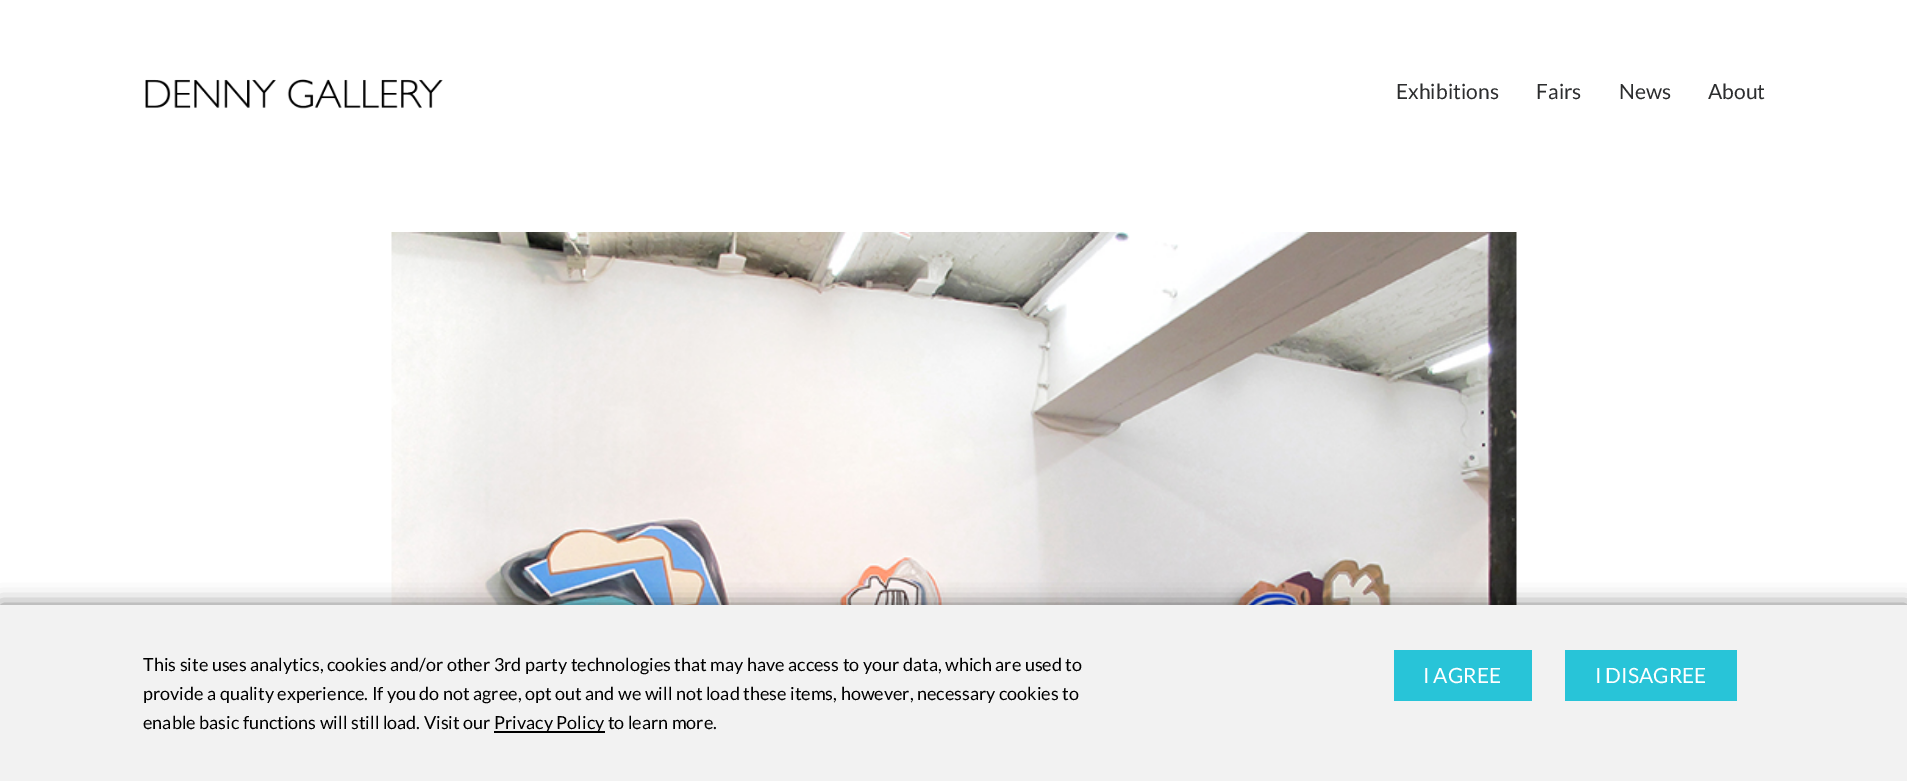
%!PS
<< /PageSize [1907 781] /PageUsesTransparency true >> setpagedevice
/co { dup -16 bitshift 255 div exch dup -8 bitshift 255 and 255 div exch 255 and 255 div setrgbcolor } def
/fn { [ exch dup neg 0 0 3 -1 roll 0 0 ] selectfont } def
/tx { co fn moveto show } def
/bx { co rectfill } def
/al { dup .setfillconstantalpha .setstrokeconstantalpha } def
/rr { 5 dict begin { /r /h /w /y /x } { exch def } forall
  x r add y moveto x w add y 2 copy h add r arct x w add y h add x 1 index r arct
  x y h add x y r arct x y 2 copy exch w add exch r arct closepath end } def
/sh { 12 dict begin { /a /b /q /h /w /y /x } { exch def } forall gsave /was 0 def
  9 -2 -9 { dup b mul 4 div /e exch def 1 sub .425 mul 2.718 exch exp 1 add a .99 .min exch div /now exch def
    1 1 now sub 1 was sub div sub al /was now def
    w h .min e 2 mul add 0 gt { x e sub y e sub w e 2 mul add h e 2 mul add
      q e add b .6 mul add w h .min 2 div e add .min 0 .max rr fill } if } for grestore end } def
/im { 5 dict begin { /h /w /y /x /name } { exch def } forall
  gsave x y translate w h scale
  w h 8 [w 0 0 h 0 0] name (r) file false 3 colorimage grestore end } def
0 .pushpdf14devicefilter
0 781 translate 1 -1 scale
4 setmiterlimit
0 0 1907 781 16#FFFFFF bx
(media/1.raw) 145 79 298 30 im
(media/2.raw) 391 232 1126 373 im
16#000000 co
0 605 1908 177 0 10 .5 sh
0 605 1907 176 16#F2F2F2 bx
494 731 111 2 16#000000 bx
1394 650 138 51 16#28C4D8 bx
1565 650 172 51 16#28C4D8 bx
(Exhibitions) 1396 99 /Lato-Regular 21 16#2C2D2E tx
(Fairs) 1536 99 /Lato-Regular 21 16#2C2D2E tx
(News) 1619 99 /Lato-Regular 21 16#2C2D2E tx
(About) 1708 99 /Lato-Regular 21 16#2C2D2E tx
(This site uses analytics, cookies and/or other 3rd party technologies that may have access to your data, which are used to) 143 671 /Lato-Regular 18 16#000000 tx
(provide a quality experience. If you do not agree, opt out and we will not load these items, however, necessary cookies to) 143 700 /Lato-Regular 18 16#000000 tx
(enable basic functions will still load. Visit our) 143 729 /Lato-Regular 18 16#000000 tx
(Privacy Policy to learn more.) 494 729 /Lato-Regular 18 16#000000 tx
(I AGREE) 1423 683 /Lato-Regular 21 16#FFFFFF tx
(I DISAGREE) 1595 683 /Lato-Regular 21 16#FFFFFF tx
.poppdf14devicefilter showpage
